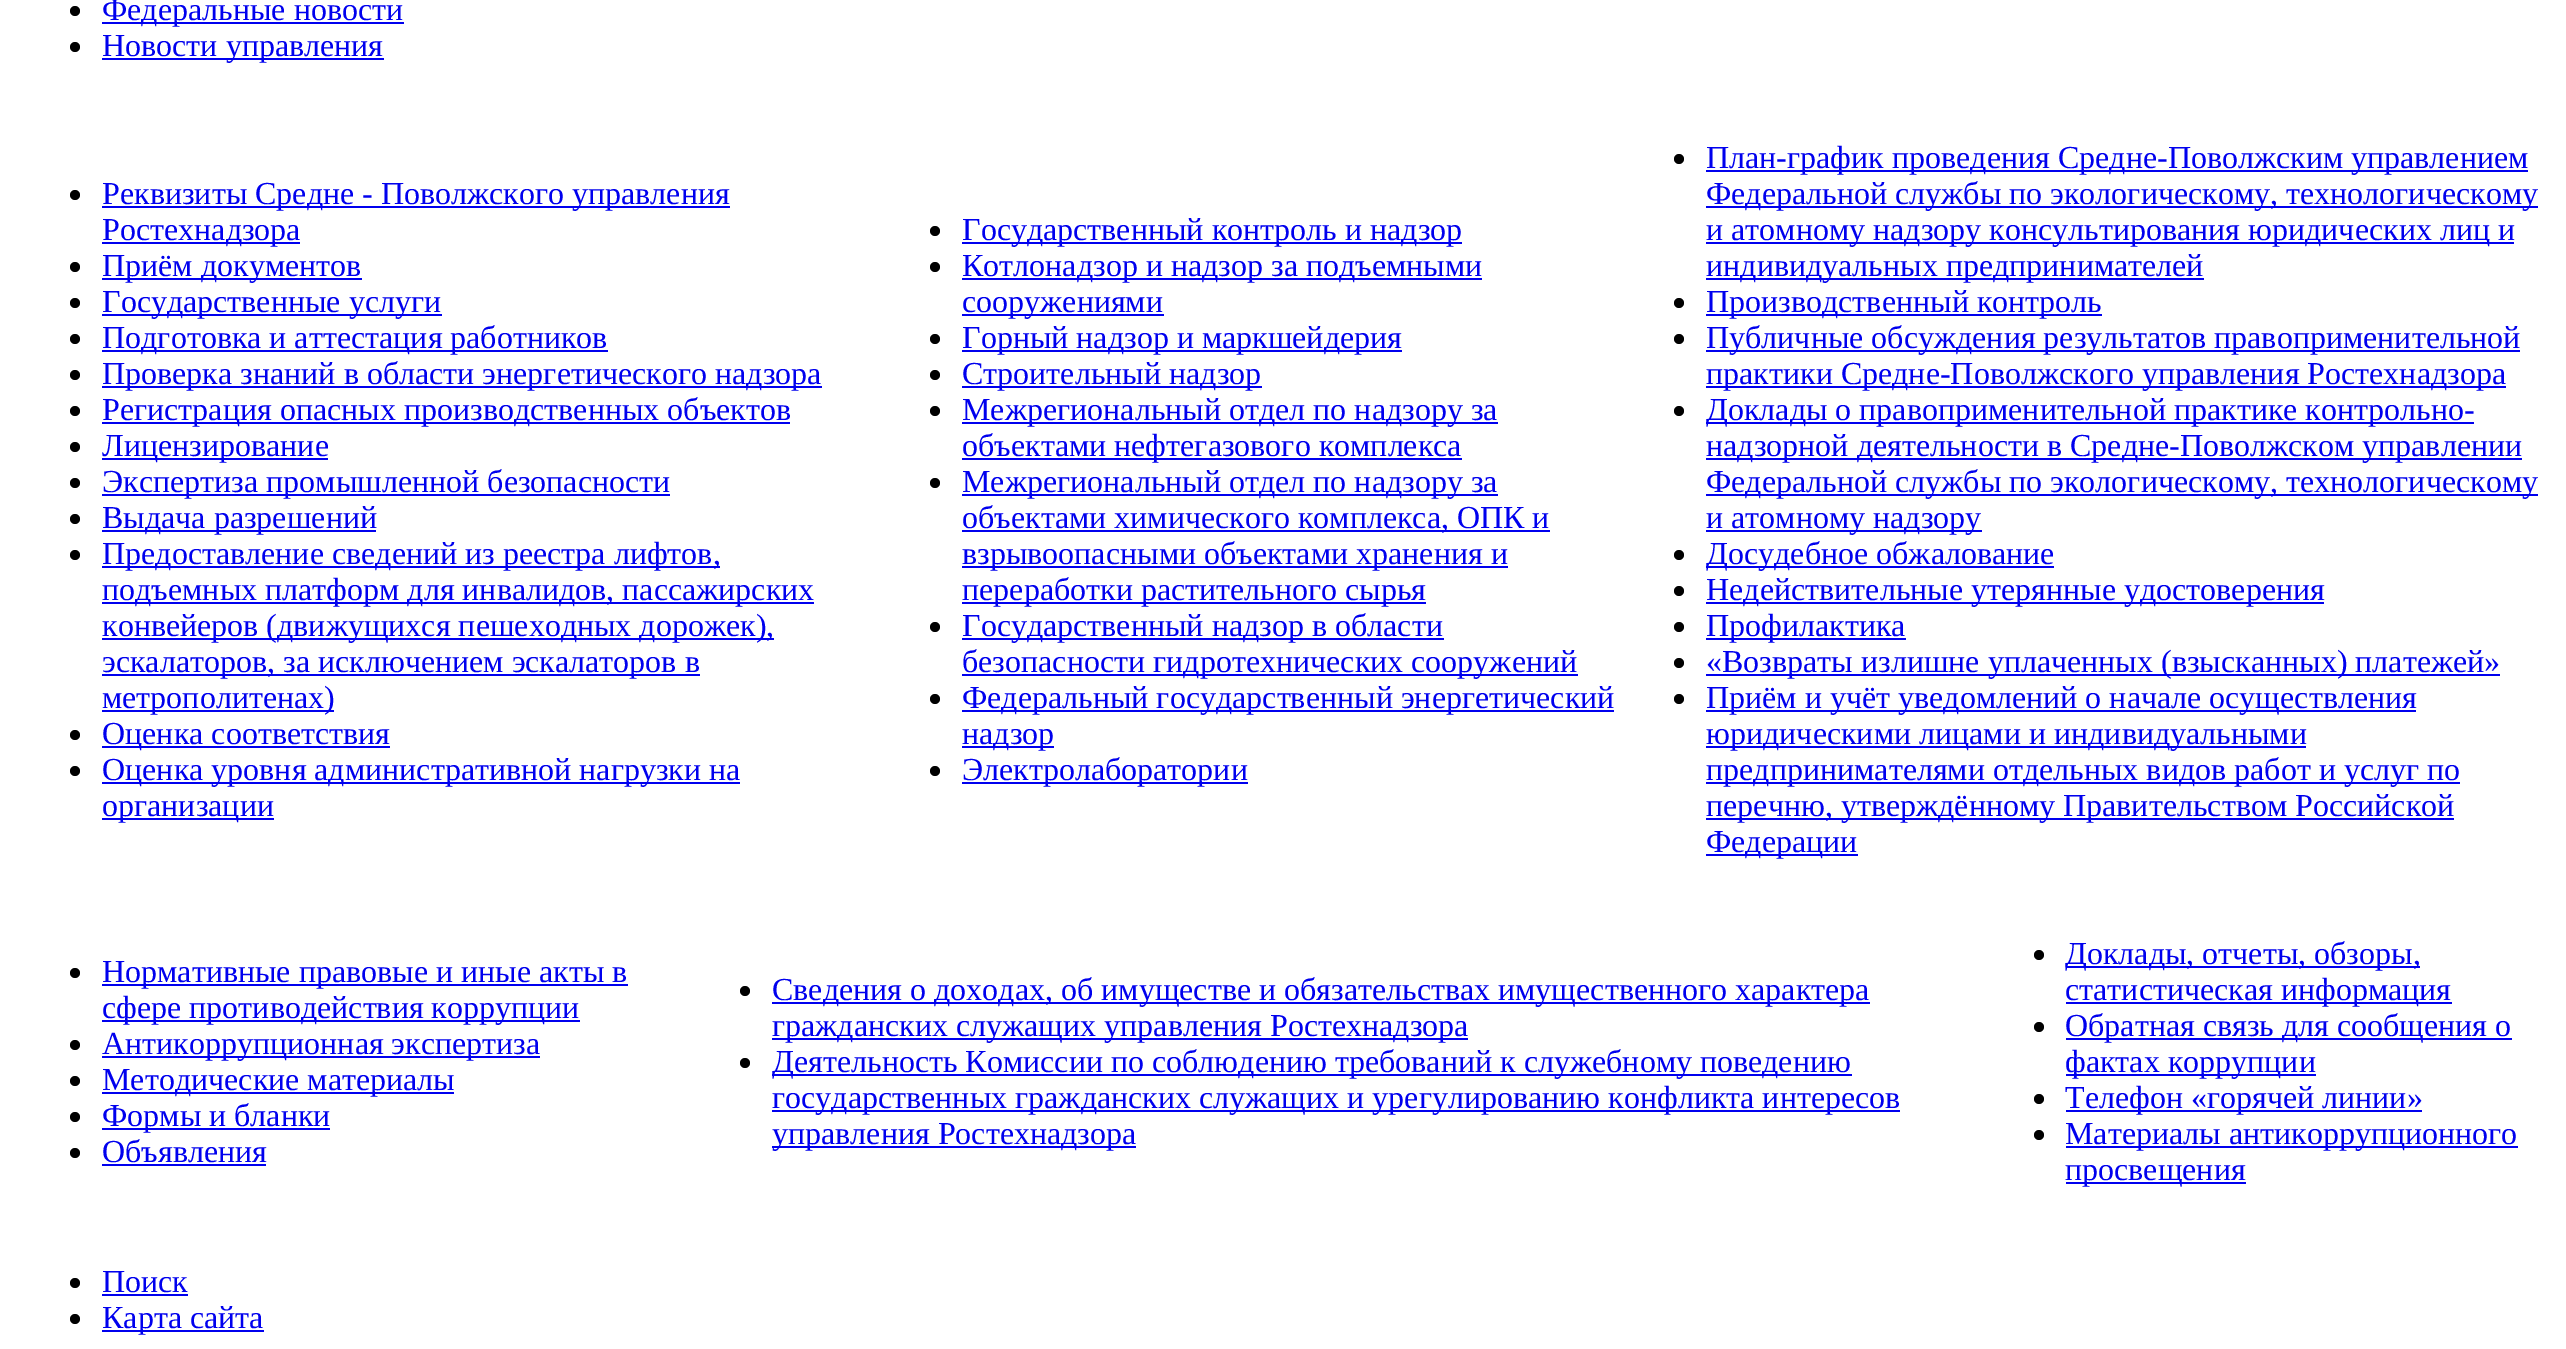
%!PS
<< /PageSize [2566 1349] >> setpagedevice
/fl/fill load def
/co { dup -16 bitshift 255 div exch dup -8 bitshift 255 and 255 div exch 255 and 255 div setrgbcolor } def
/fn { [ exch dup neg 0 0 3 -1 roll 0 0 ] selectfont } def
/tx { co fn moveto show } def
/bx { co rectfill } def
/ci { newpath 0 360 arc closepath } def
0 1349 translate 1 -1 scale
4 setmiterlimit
0 0 2566 1349 16#FFFFFF bx
16#000000 co
75 11 5 ci fl
102 22 302 2 16#0000EE bx
16#000000 co
75 47 5 ci fl
102 58 282 2 16#0000EE bx
16#000000 co
75 195 5 ci fl
102 206 628 2 16#0000EE bx
102 242 198 2 16#0000EE bx
16#000000 co
75 267 5 ci fl
102 278 260 2 16#0000EE bx
16#000000 co
75 303 5 ci fl
102 314 340 2 16#0000EE bx
16#000000 co
75 339 5 ci fl
102 350 506 2 16#0000EE bx
16#000000 co
75 375 5 ci fl
102 386 720 2 16#0000EE bx
16#000000 co
75 411 5 ci fl
102 422 688 2 16#0000EE bx
16#000000 co
75 447 5 ci fl
102 458 226 2 16#0000EE bx
16#000000 co
75 483 5 ci fl
102 494 568 2 16#0000EE bx
16#000000 co
75 519 5 ci fl
102 530 274 2 16#0000EE bx
16#000000 co
75 555 5 ci fl
102 566 618 2 16#0000EE bx
102 602 712 2 16#0000EE bx
102 638 672 2 16#0000EE bx
102 674 598 2 16#0000EE bx
102 710 232 2 16#0000EE bx
16#000000 co
75 735 5 ci fl
102 746 288 2 16#0000EE bx
16#000000 co
75 771 5 ci fl
102 782 638 2 16#0000EE bx
102 818 172 2 16#0000EE bx
16#000000 co
935 231 5 ci fl
962 242 500 2 16#0000EE bx
16#000000 co
935 267 5 ci fl
962 278 520 2 16#0000EE bx
962 314 202 2 16#0000EE bx
16#000000 co
935 339 5 ci fl
962 350 440 2 16#0000EE bx
16#000000 co
935 375 5 ci fl
962 386 300 2 16#0000EE bx
16#000000 co
935 411 5 ci fl
962 422 536 2 16#0000EE bx
962 458 500 2 16#0000EE bx
16#000000 co
935 483 5 ci fl
962 494 536 2 16#0000EE bx
962 530 588 2 16#0000EE bx
962 566 546 2 16#0000EE bx
962 602 464 2 16#0000EE bx
16#000000 co
935 627 5 ci fl
962 638 482 2 16#0000EE bx
962 674 616 2 16#0000EE bx
16#000000 co
935 699 5 ci fl
962 710 652 2 16#0000EE bx
962 746 92 2 16#0000EE bx
16#000000 co
935 771 5 ci fl
962 782 286 2 16#0000EE bx
16#000000 co
1679 159 5 ci fl
1706 170 822 2 16#0000EE bx
1706 206 832 2 16#0000EE bx
1706 242 808 2 16#0000EE bx
1706 278 498 2 16#0000EE bx
16#000000 co
1679 303 5 ci fl
1706 314 396 2 16#0000EE bx
16#000000 co
1679 339 5 ci fl
1706 350 814 2 16#0000EE bx
1706 386 800 2 16#0000EE bx
16#000000 co
1679 411 5 ci fl
1706 422 768 2 16#0000EE bx
1706 458 816 2 16#0000EE bx
1706 494 832 2 16#0000EE bx
1706 530 276 2 16#0000EE bx
16#000000 co
1679 555 5 ci fl
1706 566 348 2 16#0000EE bx
16#000000 co
1679 591 5 ci fl
1706 602 618 2 16#0000EE bx
16#000000 co
1679 627 5 ci fl
1706 638 200 2 16#0000EE bx
16#000000 co
1679 663 5 ci fl
1706 674 794 2 16#0000EE bx
16#000000 co
1679 699 5 ci fl
1706 710 710 2 16#0000EE bx
1706 746 600 2 16#0000EE bx
1706 782 754 2 16#0000EE bx
1706 818 748 2 16#0000EE bx
1706 854 152 2 16#0000EE bx
16#000000 co
75 973 5 ci fl
102 984 526 2 16#0000EE bx
102 1020 478 2 16#0000EE bx
16#000000 co
75 1045 5 ci fl
102 1056 438 2 16#0000EE bx
16#000000 co
75 1081 5 ci fl
102 1092 352 2 16#0000EE bx
16#000000 co
75 1117 5 ci fl
102 1128 228 2 16#0000EE bx
16#000000 co
75 1153 5 ci fl
102 1164 164 2 16#0000EE bx
16#000000 co
745 991 5 ci fl
772 1002 1098 2 16#0000EE bx
772 1038 696 2 16#0000EE bx
16#000000 co
745 1063 5 ci fl
772 1074 1080 2 16#0000EE bx
772 1110 1128 2 16#0000EE bx
772 1146 364 2 16#0000EE bx
16#000000 co
2039 955 5 ci fl
2066 966 354 2 16#0000EE bx
2066 1002 386 2 16#0000EE bx
16#000000 co
2039 1027 5 ci fl
2066 1038 446 2 16#0000EE bx
2066 1074 250 2 16#0000EE bx
16#000000 co
2039 1099 5 ci fl
2066 1110 356 2 16#0000EE bx
16#000000 co
2039 1135 5 ci fl
2066 1146 452 2 16#0000EE bx
2066 1182 180 2 16#0000EE bx
16#000000 co
75 1283 5 ci fl
102 1294 86 2 16#0000EE bx
16#000000 co
75 1319 5 ci fl
102 1330 162 2 16#0000EE bx
(Федеральные новости) 102 20 /LiberationSerif-Regular 32 16#0000EE tx
(Новости управления) 102 56 /LiberationSerif-Regular 32 16#0000EE tx
(Реквизиты Средне - Поволжского управления) 102 204 /LiberationSerif-Regular 32 16#0000EE tx
(Ростехнадзора) 102 240 /LiberationSerif-Regular 32 16#0000EE tx
(Приём документов) 102 276 /LiberationSerif-Regular 32 16#0000EE tx
(Государственные услуги) 102 312 /LiberationSerif-Regular 32 16#0000EE tx
(Подготовка и аттестация работников) 102 348 /LiberationSerif-Regular 32 16#0000EE tx
(Проверка знаний в области энергетического надзора) 102 384 /LiberationSerif-Regular 32 16#0000EE tx
(Регистрация опасных производственных объектов) 102 420 /LiberationSerif-Regular 32 16#0000EE tx
(Лицензирование) 102 456 /LiberationSerif-Regular 32 16#0000EE tx
(Экспертиза промышленной безопасности) 102 492 /LiberationSerif-Regular 32 16#0000EE tx
(Выдача разрешений) 102 528 /LiberationSerif-Regular 32 16#0000EE tx
(Предоставление сведений из реестра лифтов,) 102 564 /LiberationSerif-Regular 32 16#0000EE tx
(подъемных платформ для инвалидов, пассажирских) 102 600 /LiberationSerif-Regular 32 16#0000EE tx
(конвейеров \(движущихся пешеходных дорожек\),) 102 636 /LiberationSerif-Regular 32 16#0000EE tx
(эскалаторов, за исключением эскалаторов в) 102 672 /LiberationSerif-Regular 32 16#0000EE tx
(метрополитенах\)) 102 708 /LiberationSerif-Regular 32 16#0000EE tx
(Оценка соответствия) 102 744 /LiberationSerif-Regular 32 16#0000EE tx
(Оценка уровня административной нагрузки на) 102 780 /LiberationSerif-Regular 32 16#0000EE tx
(организации) 102 816 /LiberationSerif-Regular 32 16#0000EE tx
(Государственный контроль и надзор) 962 240 /LiberationSerif-Regular 32 16#0000EE tx
(Котлонадзор и надзор за подъемными) 962 276 /LiberationSerif-Regular 32 16#0000EE tx
(сооружениями) 962 312 /LiberationSerif-Regular 32 16#0000EE tx
(Горный надзор и маркшейдерия) 962 348 /LiberationSerif-Regular 32 16#0000EE tx
(Строительный надзор) 962 384 /LiberationSerif-Regular 32 16#0000EE tx
(Межрегиональный отдел по надзору за) 962 420 /LiberationSerif-Regular 32 16#0000EE tx
(объектами нефтегазового комплекса) 962 456 /LiberationSerif-Regular 32 16#0000EE tx
(Межрегиональный отдел по надзору за) 962 492 /LiberationSerif-Regular 32 16#0000EE tx
(объектами химического комплекса, ОПК и) 962 528 /LiberationSerif-Regular 32 16#0000EE tx
(взрывоопасными объектами хранения и) 962 564 /LiberationSerif-Regular 32 16#0000EE tx
(переработки растительного сырья) 962 600 /LiberationSerif-Regular 32 16#0000EE tx
(Государственный надзор в области) 962 636 /LiberationSerif-Regular 32 16#0000EE tx
(безопасности гидротехнических сооружений) 962 672 /LiberationSerif-Regular 32 16#0000EE tx
(Федеральный государственный энергетический) 962 708 /LiberationSerif-Regular 32 16#0000EE tx
(надзор) 962 744 /LiberationSerif-Regular 32 16#0000EE tx
(Электролаборатории) 962 780 /LiberationSerif-Regular 32 16#0000EE tx
(План-график проведения Средне-Поволжским управлением) 1706 168 /LiberationSerif-Regular 32 16#0000EE tx
(Федеральной службы по экологическому, технологическому) 1706 204 /LiberationSerif-Regular 32 16#0000EE tx
(и атомному надзору консультирования юридических лиц и) 1706 240 /LiberationSerif-Regular 32 16#0000EE tx
(индивидуальных предпринимателей) 1706 276 /LiberationSerif-Regular 32 16#0000EE tx
(Производственный контроль) 1706 312 /LiberationSerif-Regular 32 16#0000EE tx
(Публичные обсуждения результатов правоприменительной) 1706 348 /LiberationSerif-Regular 32 16#0000EE tx
(практики Средне-Поволжского управления Ростехнадзора) 1706 384 /LiberationSerif-Regular 32 16#0000EE tx
(Доклады о правоприменительной практике контрольно-) 1706 420 /LiberationSerif-Regular 32 16#0000EE tx
(надзорной деятельности в Средне-Поволжском управлении) 1706 456 /LiberationSerif-Regular 32 16#0000EE tx
(Федеральной службы по экологическому, технологическому) 1706 492 /LiberationSerif-Regular 32 16#0000EE tx
(и атомному надзору) 1706 528 /LiberationSerif-Regular 32 16#0000EE tx
(Досудебное обжалование) 1706 564 /LiberationSerif-Regular 32 16#0000EE tx
(Недействительные утерянные удостоверения) 1706 600 /LiberationSerif-Regular 32 16#0000EE tx
(Профилактика) 1706 636 /LiberationSerif-Regular 32 16#0000EE tx
(«Возвраты излишне уплаченных \(взысканных\) платежей») 1706 672 /LiberationSerif-Regular 32 16#0000EE tx
(Приём и учёт уведомлений о начале осуществления) 1706 708 /LiberationSerif-Regular 32 16#0000EE tx
(юридическими лицами и индивидуальными) 1706 744 /LiberationSerif-Regular 32 16#0000EE tx
(предпринимателями отдельных видов работ и услуг по) 1706 780 /LiberationSerif-Regular 32 16#0000EE tx
(перечню, утверждённому Правительством Российской) 1706 816 /LiberationSerif-Regular 32 16#0000EE tx
(Федерации) 1706 852 /LiberationSerif-Regular 32 16#0000EE tx
(Нормативные правовые и иные акты в) 102 982 /LiberationSerif-Regular 32 16#0000EE tx
(сфере противодействия коррупции) 102 1018 /LiberationSerif-Regular 32 16#0000EE tx
(Антикоррупционная экспертиза) 102 1054 /LiberationSerif-Regular 32 16#0000EE tx
(Методические материалы) 102 1090 /LiberationSerif-Regular 32 16#0000EE tx
(Формы и бланки) 102 1126 /LiberationSerif-Regular 32 16#0000EE tx
(Объявления) 102 1162 /LiberationSerif-Regular 32 16#0000EE tx
(Сведения о доходах, об имуществе и обязательствах имущественного характера) 772 1000 /LiberationSerif-Regular 32 16#0000EE tx
(гражданских служащих управления Ростехнадзора) 772 1036 /LiberationSerif-Regular 32 16#0000EE tx
(Деятельность Комиссии по соблюдению требований к служебному поведению) 772 1072 /LiberationSerif-Regular 32 16#0000EE tx
(государственных гражданских служащих и урегулированию конфликта интересов) 772 1108 /LiberationSerif-Regular 32 16#0000EE tx
(управления Ростехнадзора) 772 1144 /LiberationSerif-Regular 32 16#0000EE tx
(Доклады, отчеты, обзоры,) 2065 964 /LiberationSerif-Regular 32 16#0000EE tx
(статистическая информация) 2065 1000 /LiberationSerif-Regular 32 16#0000EE tx
(Обратная связь для сообщения о) 2065 1036 /LiberationSerif-Regular 32 16#0000EE tx
(фактах коррупции) 2065 1072 /LiberationSerif-Regular 32 16#0000EE tx
(Телефон «горячей линии») 2065 1108 /LiberationSerif-Regular 32 16#0000EE tx
(Материалы антикоррупционного) 2065 1144 /LiberationSerif-Regular 32 16#0000EE tx
(просвещения) 2065 1180 /LiberationSerif-Regular 32 16#0000EE tx
(Поиск) 102 1292 /LiberationSerif-Regular 32 16#0000EE tx
(Карта сайта) 102 1328 /LiberationSerif-Regular 32 16#0000EE tx
showpage
